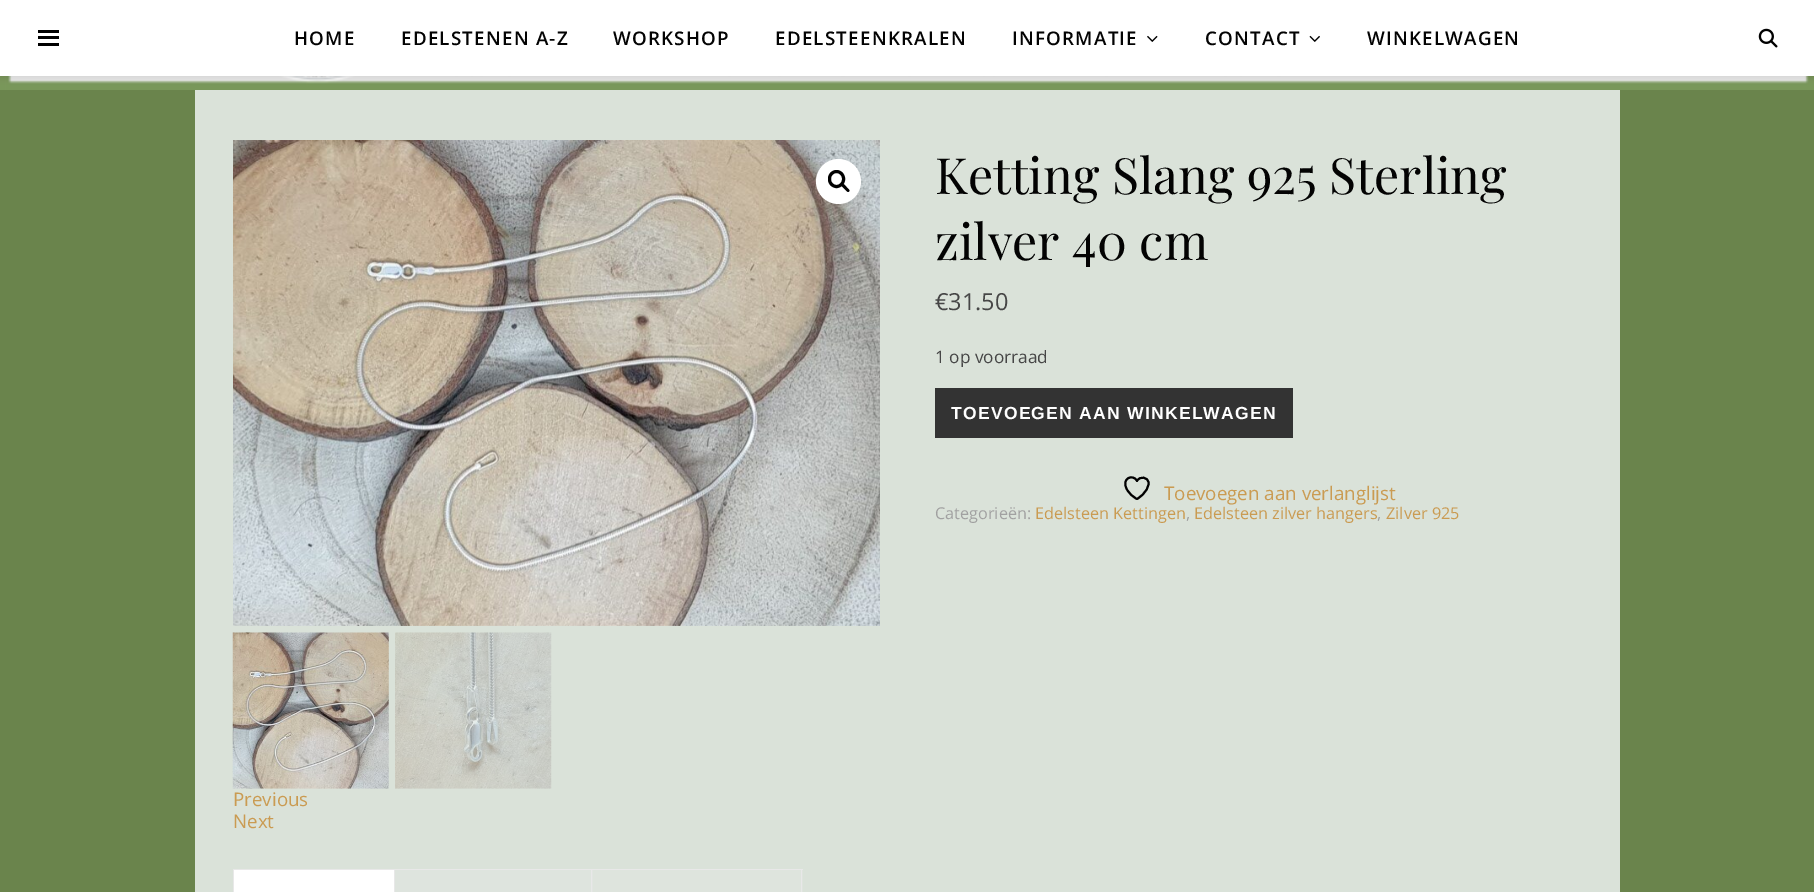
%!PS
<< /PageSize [1814 892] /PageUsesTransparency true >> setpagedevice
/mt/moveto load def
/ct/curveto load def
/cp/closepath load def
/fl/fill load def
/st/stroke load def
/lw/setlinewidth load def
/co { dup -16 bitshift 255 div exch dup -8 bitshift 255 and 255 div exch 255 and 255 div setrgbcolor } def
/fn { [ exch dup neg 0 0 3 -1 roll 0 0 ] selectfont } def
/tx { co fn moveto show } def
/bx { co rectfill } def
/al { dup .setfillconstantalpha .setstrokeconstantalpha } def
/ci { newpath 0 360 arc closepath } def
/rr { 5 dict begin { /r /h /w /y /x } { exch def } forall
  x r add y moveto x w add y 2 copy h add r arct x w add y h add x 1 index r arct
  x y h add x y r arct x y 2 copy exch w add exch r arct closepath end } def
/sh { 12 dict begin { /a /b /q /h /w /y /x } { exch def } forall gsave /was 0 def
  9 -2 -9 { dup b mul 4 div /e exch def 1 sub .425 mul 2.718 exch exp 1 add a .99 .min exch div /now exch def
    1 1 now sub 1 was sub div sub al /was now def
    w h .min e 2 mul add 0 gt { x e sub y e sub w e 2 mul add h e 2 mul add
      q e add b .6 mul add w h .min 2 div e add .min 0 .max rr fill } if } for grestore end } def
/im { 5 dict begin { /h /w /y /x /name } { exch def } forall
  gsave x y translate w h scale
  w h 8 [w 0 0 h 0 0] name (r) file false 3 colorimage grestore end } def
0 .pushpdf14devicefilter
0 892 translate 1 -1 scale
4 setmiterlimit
0 0 1814 892 16#6A844C bx
(media/4.raw) 0 76 6 14 im
(media/5.raw) 6 76 1808 14 im
16#000000 co
0 1 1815 77 0 3 .1 sh
0 0 1814 76 16#FFFFFF bx
38 30 21 3 16#000000 bx
38 36 21 3 16#000000 bx
38 43 21 3 16#000000 bx
(media/1.raw) 1147 35 11 7 im
(media/2.raw) 1309 35 11 7 im
(media/3.raw) 1758 28 20 20 im
195 90 1425 802 16#DAE2D9 bx
593 870 210 22 16#DEE4DD bx
935 388 358 50 16#333333 bx
16#000000 co
2 lw
1 setlinecap
1 setlinejoin
1148.5 483 mt 1148.5 477 1139.5 475.5 1137 481 ct 1133.5 473.5 1120.5 478 1127 489.5 ct 1129 493.5 1133 497 1137 499 ct 1137 499 1148.5 492.5 1148.5 483 ct cp st
(media/6.raw) 233 140 647 486 im
16#FFFFFF co
838.5 181.5 22.5 ci fl
16#000000 co
3 lw
0 setlinecap
0 setlinejoin
829.5 171.5 14 15 7 rr st
842 184.5 mt 843.5 183 845.5 186 846.5 187 ct 847 188 850.5 190 849 191.5 ct 847.5 193 845.5 189.5 844.5 189 ct 844 188 840.5 186 842 184.5 ct cp fl
(media/7.raw) 232 632 157 157 im
(media/8.raw) 395 632 157 157 im
395 870 196 22 16#DEE4DE bx
592 869 1 23 16#E1E5E1 bx
233 869 360 1 16#E8E8E8 bx
591 869 1 23 16#E8E8E8 bx
234 870 160 22 16#FFFFFF bx
394 869 1 23 16#E8E8E8 bx
233 869 1 23 16#E8E8E8 bx
591 869 212 1 16#E8E8E8 bx
801 869 1 23 16#E8E8E8 bx
/OpenSans-SemiBold 18.75 fn
16#030303 co
294 45 mt 1.25 0 (HOME) ashow
401 45 mt 1.25 0 (EDELSTENEN A-Z) ashow
613 45 mt 1.25 0 (WORKSHOP) ashow
775 45 mt 1.25 0 (EDELSTEENKRALEN) ashow
1012 45 mt 1.25 0 (INFORMATIE) ashow
1205 45 mt 1.25 0 (CONTACT) ashow
1367 45 mt 1.25 0 (WINKELWAGEN) ashow
(Ketting Slang 925 Sterling) 935 194 /PlayfairDisplay-Regular 50 16#030303 tx
(zilver 40 cm) 935 260 /PlayfairDisplay-Regular 50 16#030303 tx
(€31.50) 935 310 /OpenSans-Regular 23.5 16#464646 tx
(1 op voorraad) 935 363 /OpenSans-Regular 17.25 16#464646 tx
/LiberationSans-Bold 17.5 fn
16#FFFFFF co
951 419 mt 1.25 0 (TOEVOEGEN AAN WINKELWAGEN) ashow
(Toevoegen aan verlanglijst) 1164 500 /OpenSans-Regular 18.75 16#CA9B52 tx
(Categorieën:) 935 519 /OpenSans-Regular 16.25 16#A1A1A1 tx
(Edelsteen Kettingen) 1035 519 /OpenSans-Regular 16.25 16#CA9B52 tx
(,) 1186 519 /OpenSans-Regular 16.25 16#A1A1A1 tx
(Edelsteen zilver hangers) 1194 519 /OpenSans-Regular 16.25 16#CA9B52 tx
(,) 1377 519 /OpenSans-Regular 16.25 16#A1A1A1 tx
(Zilver 925) 1386 519 /OpenSans-Regular 16.25 16#CA9B52 tx
(Previous) 233 806 /OpenSans-Regular 18.75 16#CA9B52 tx
(Next) 233 828 /OpenSans-Regular 18.75 16#CA9B52 tx
.poppdf14devicefilter showpage
